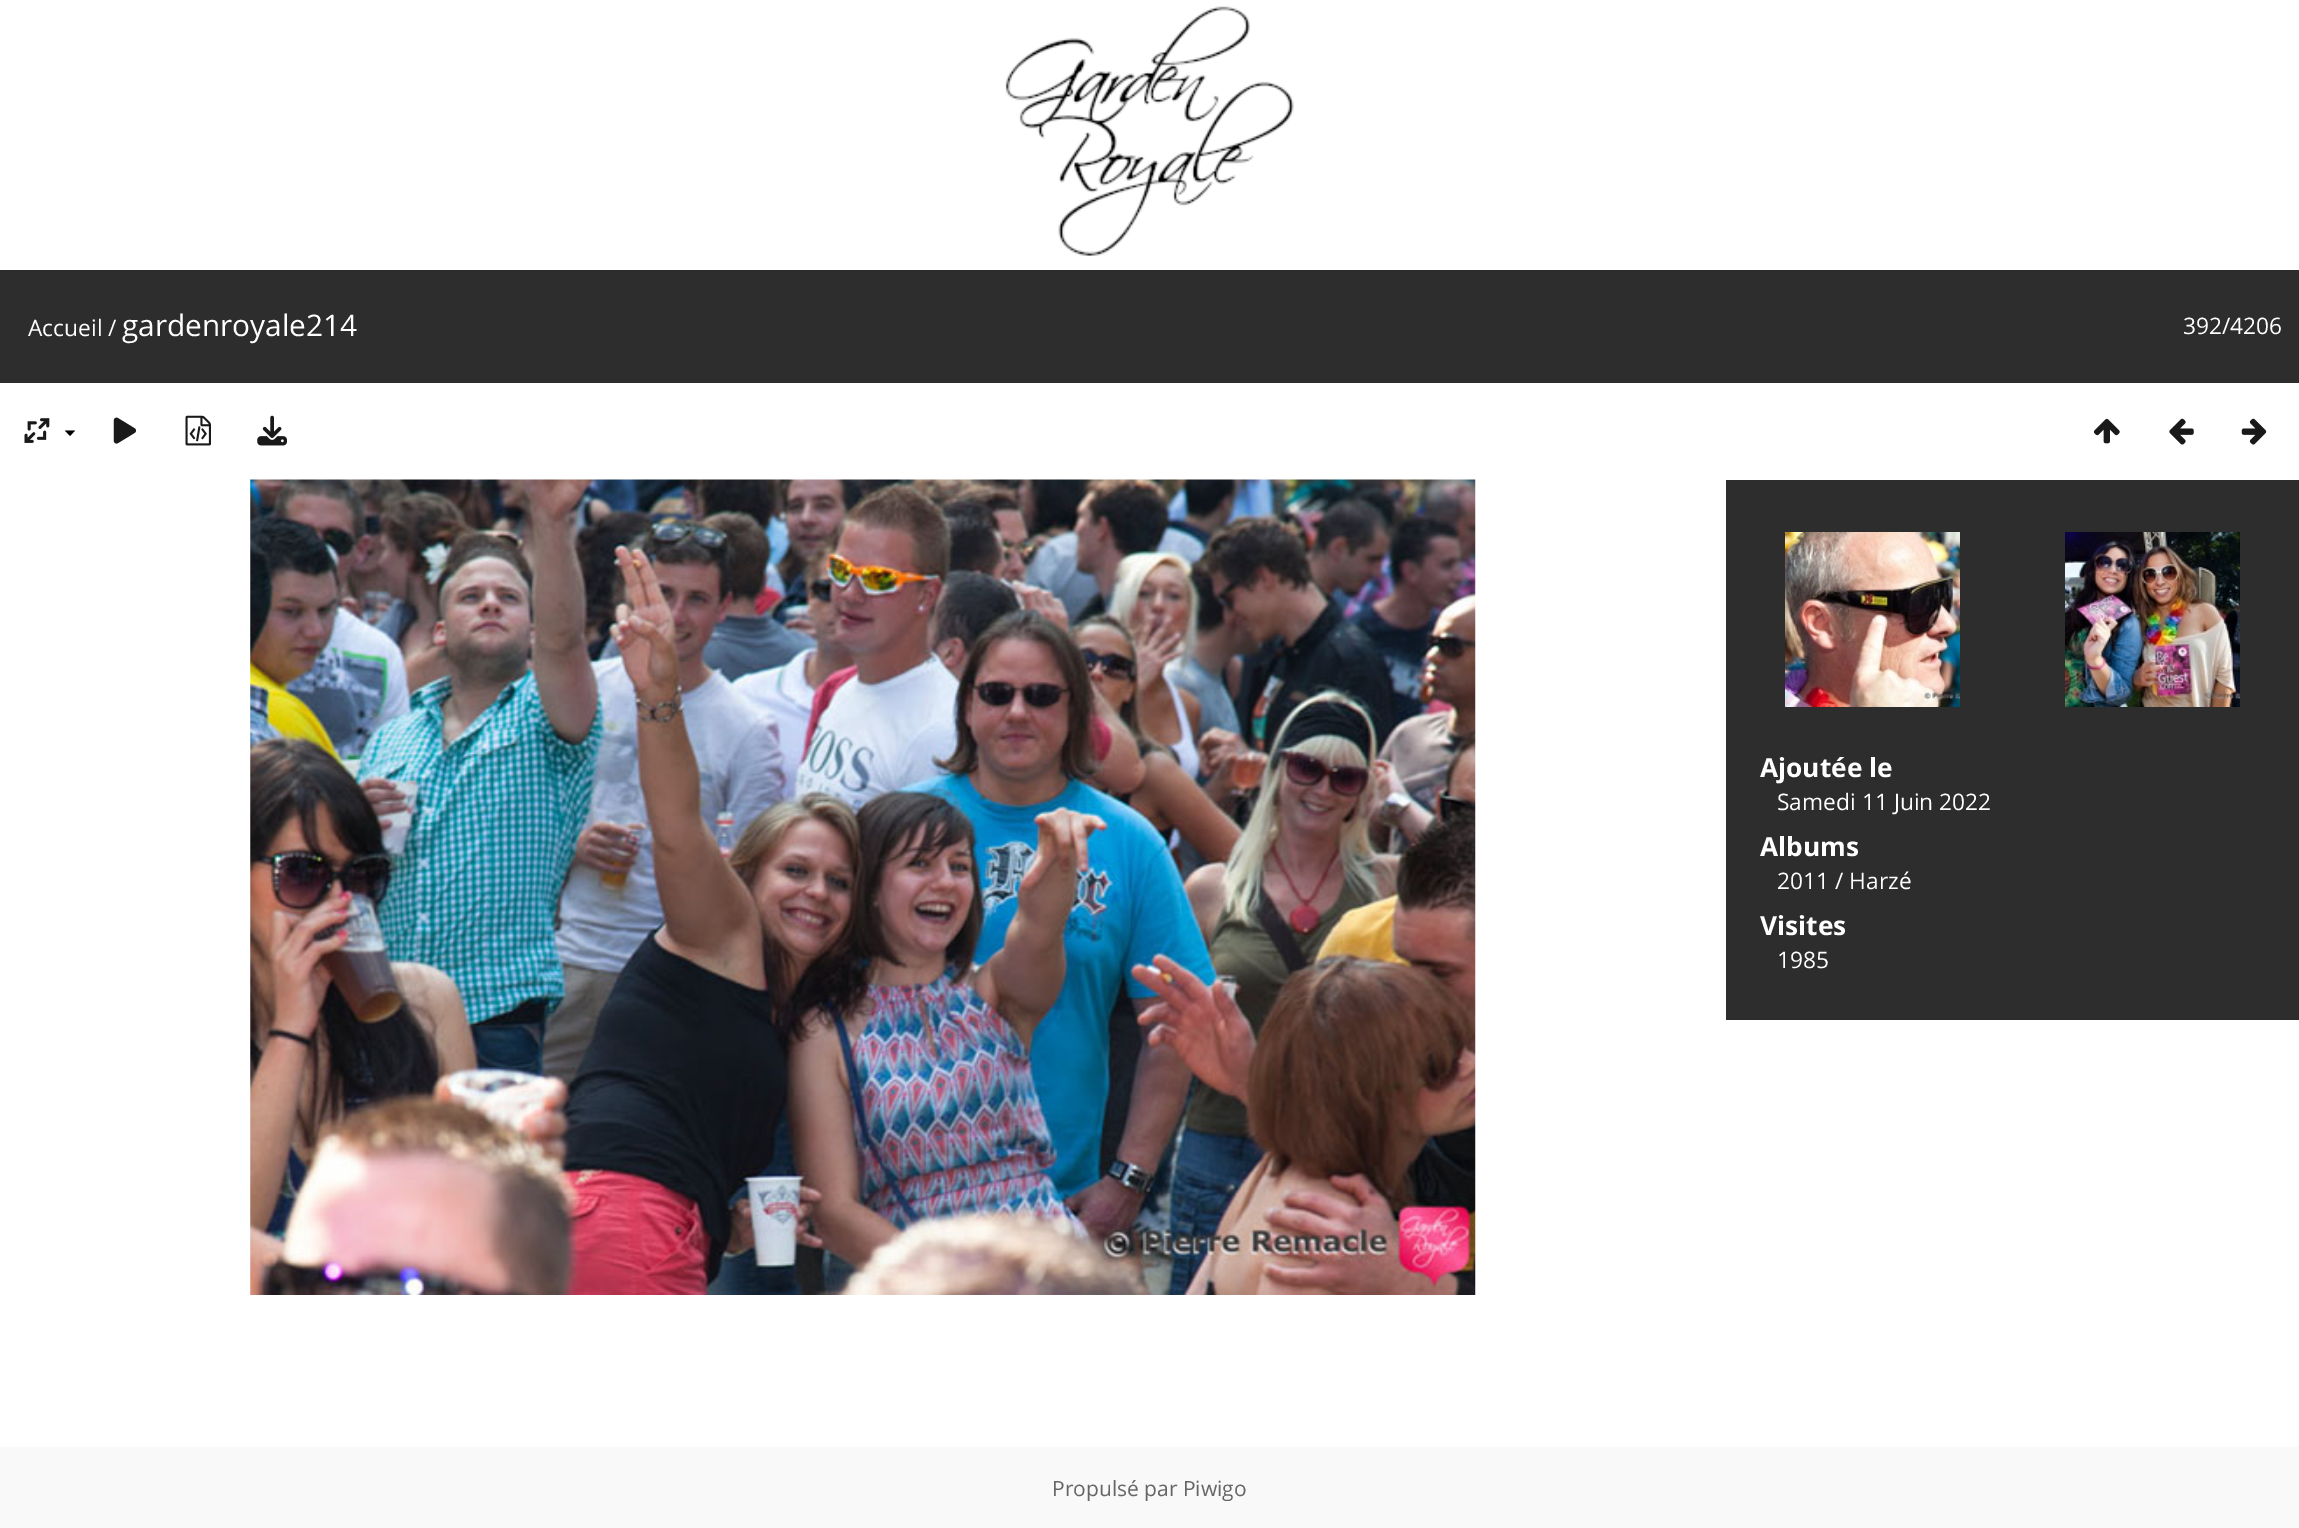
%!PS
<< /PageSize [2299 1528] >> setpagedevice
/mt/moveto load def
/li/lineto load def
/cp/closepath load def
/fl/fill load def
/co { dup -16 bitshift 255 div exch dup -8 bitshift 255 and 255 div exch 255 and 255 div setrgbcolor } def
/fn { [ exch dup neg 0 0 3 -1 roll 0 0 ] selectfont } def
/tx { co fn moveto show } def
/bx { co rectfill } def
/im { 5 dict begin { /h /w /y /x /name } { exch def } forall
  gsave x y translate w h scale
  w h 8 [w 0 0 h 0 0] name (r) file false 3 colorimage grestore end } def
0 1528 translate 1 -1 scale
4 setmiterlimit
0 0 2299 1528 16#FFFFFF bx
(media/1.raw) 1005 6 289 250 im
0 270 2299 113 16#2D2D2D bx
(media/2.raw) 24 418 26 25 im
16#000000 co
65 430.5 mt 75 430.5 li 70 436 li cp fl
(media/3.raw) 113 417 24 27 im
(media/4.raw) 185 415 26 31 im
(media/5.raw) 257 415 30 31 im
(media/6.raw) 2093 418 27 26 im
(media/7.raw) 2169 418 25 27 im
(media/8.raw) 2241 418 26 27 im
(media/9.raw) 250 479 1226 816 im
1726 480 573 540 16#2D2D2D bx
(media/10.raw) 1785 532 175 175 im
(media/11.raw) 2065 532 175 175 im
0 1447 2299 81 16#F9F9F9 bx
(Accueil /) 28 336 /OpenSans-Regular 22.75 16#FFFFFF tx
(gardenroyale214) 122 336 /OpenSans-Regular 29.75 16#FFFFFF tx
(392/4206) 2183 334 /OpenSans-Regular 22.75 16#FFFFFF tx
(Ajoutée le) 1760 777 /OpenSans-Bold 26.25 16#FFFFFF tx
(Samedi 11 Juin 2022) 1777 810 /OpenSans-Regular 22.75 16#FFFFFF tx
(Albums) 1760 856 /OpenSans-Bold 26.25 16#FFFFFF tx
(2011 / Harzé) 1777 889 /OpenSans-Regular 22.75 16#FFFFFF tx
(Visites) 1760 935 /OpenSans-Bold 26.25 16#FFFFFF tx
(1985) 1777 968 /OpenSans-Regular 22.75 16#FFFFFF tx
(Propulsé par Piwigo) 1052 1496 /OpenSans-Regular 21 16#666666 tx
showpage
